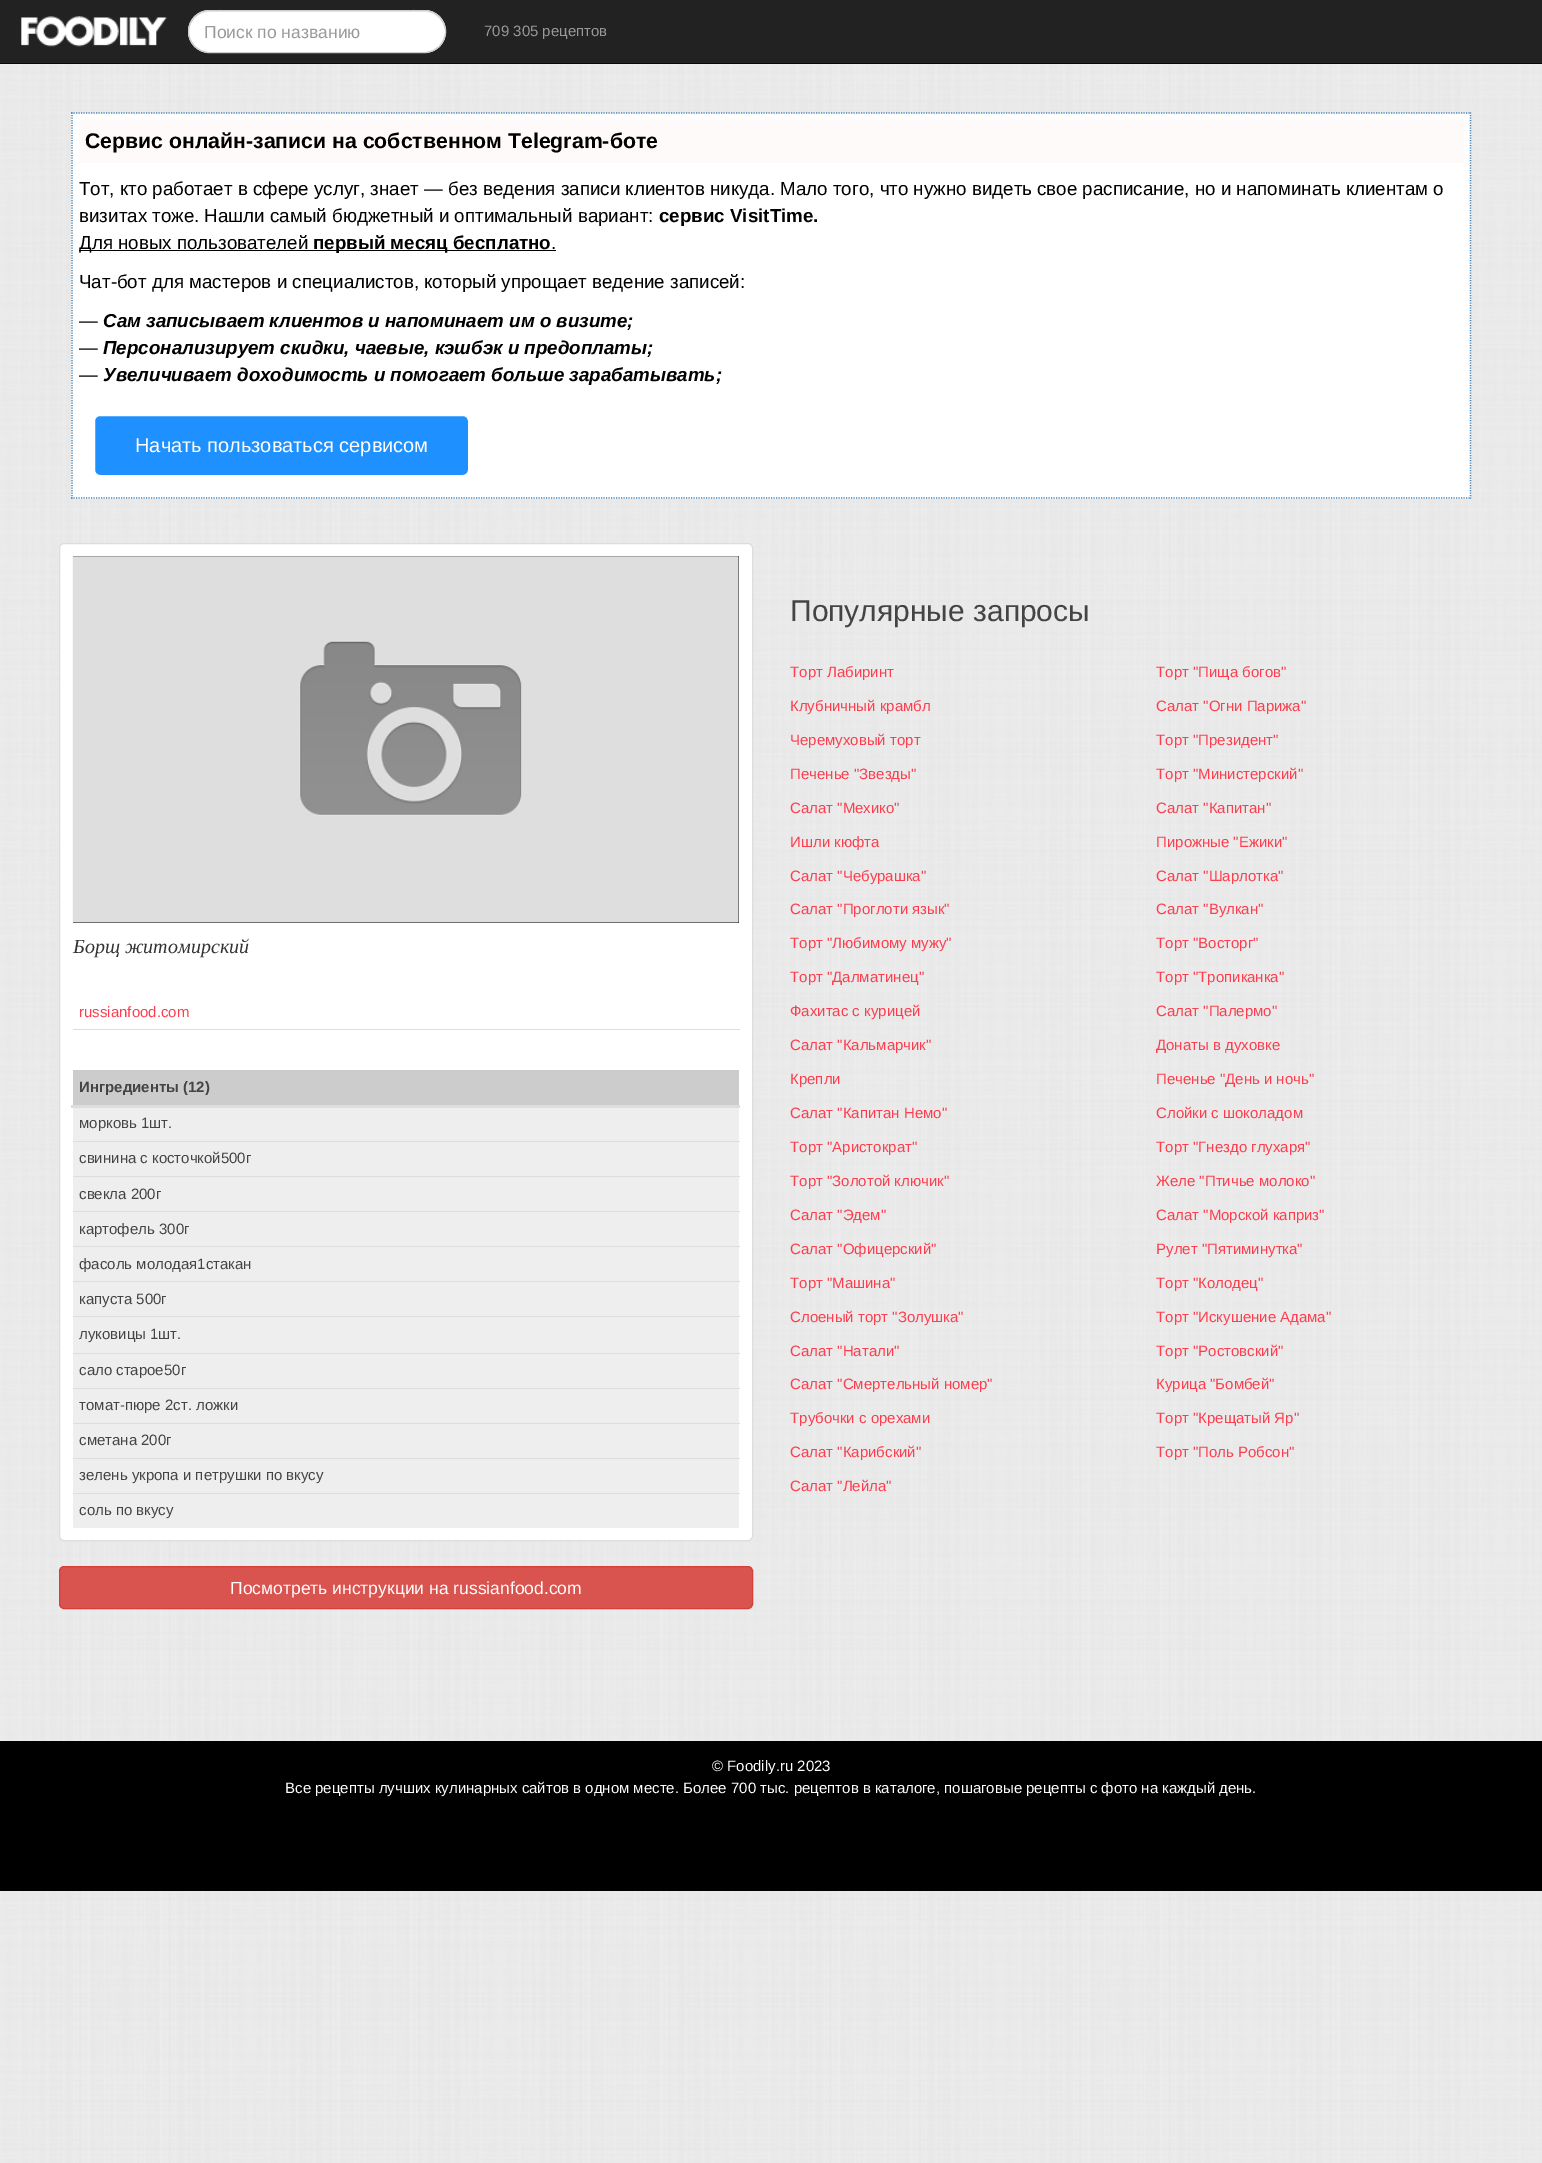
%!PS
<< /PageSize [1542 2163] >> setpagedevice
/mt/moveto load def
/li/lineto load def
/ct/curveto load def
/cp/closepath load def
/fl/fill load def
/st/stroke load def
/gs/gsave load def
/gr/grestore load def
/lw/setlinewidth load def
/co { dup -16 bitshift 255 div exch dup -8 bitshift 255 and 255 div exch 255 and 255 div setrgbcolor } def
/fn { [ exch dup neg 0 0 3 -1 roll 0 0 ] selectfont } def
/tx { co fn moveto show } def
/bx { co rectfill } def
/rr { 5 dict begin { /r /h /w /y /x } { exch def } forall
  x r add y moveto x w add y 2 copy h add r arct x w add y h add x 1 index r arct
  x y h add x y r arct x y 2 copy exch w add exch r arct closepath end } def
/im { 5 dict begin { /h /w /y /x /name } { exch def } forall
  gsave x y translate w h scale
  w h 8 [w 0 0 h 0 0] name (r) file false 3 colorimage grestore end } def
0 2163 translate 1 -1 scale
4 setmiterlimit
0 0 1542 2163 16#FFFFFF bx
(media/1.raw) 0 64 1542 2099 im
0 0 1542 63 16#222222 bx
0 63 1542 1 16#090909 bx
(media/2.raw) 21 16 146 31 im
16#FFFFFF co
188 10 258 43 21.5 rr fl
16#ECECEC co
209 12 mt 425 12 li 436 12 445 21 445 32 ct 446 3 404 11 389 11 ct 245 11 li 230 11 188 3 189 32 ct 189 21 198 12 209 12 ct cp fl
16#CCCCCC co
188.5 10.5 257 42 21 rr st
71 113 1400 386 16#FFFFFF bx
16#4682B4 co
1.2 lw
[1.25 1.25] 0 setdash
71 113 mt 1471 113 li st
1470.5 112.5 mt 1470.5 499 li st
71 498 mt 1471 498 li st
72 112.5 mt 72 499 li st
79 120 1385 43 16#FFFAFA bx
79 250 477 1 16#000000 bx
16#1E90FF co
94.5 415.5 374 60 5.5 rr gs fl gr
16#FFFFFF co
1 lw
[] 0 setdash
st
59.5 543.5 693 997 4.5 rr gs fl gr
16#DDDDDD co
st
73 556 666 367 16#000000 bx
(media/3.raw) 72 556 667 367 im
73 1029 667 1 16#DDDDDD bx
73 1070 666 35 16#CCCCCC bx
71 1105 669 3 16#DDDDDD bx
73 1108 666 420 16#EEEEEE bx
73 1141 667 1 16#DDDDDD bx
73 1176 667 1 16#DDDDDD bx
73 1211 667 1 16#DDDDDD bx
73 1246 667 1 16#DDDDDD bx
73 1281 667 1 16#DDDDDD bx
73 1316 667 1 16#DDDDDD bx
73 1353 667 1 16#DDDDDD bx
73 1388 667 1 16#DDDDDD bx
73 1423 667 1 16#DDDDDD bx
73 1458 667 1 16#DDDDDD bx
73 1493 667 1 16#DDDDDD bx
16#D9534F co
59.5 1566.5 693 42 4.5 rr gs fl gr
16#D43F3A co
st
0 1741 1542 150 16#000000 bx
(Поиск по названию) 204 38 /LiberationSans-Regular 17.5 16#999999 tx
(709 305 рецептов) 484 36 /LiberationSans-Regular 15 16#999999 tx
(Сервис онлайн-записи на собственном Telegram-боте) 85 148 /LiberationSans-Bold 21.25 16#000000 tx
(Тот, кто работает в сфере услуг, знает — без ведения записи клиентов никуда. Мало того, что нужно видеть свое расписание, но и напоминать клиентам о) 79 195 /LiberationSans-Regular 18.75 16#000000 tx
(визитах тоже. Нашли самый бюджетный и оптимальный вариант:) 79 222 /LiberationSans-Regular 18.75 16#000000 tx
(сервис VisitTime.) 659 222 /LiberationSans-Bold 18.75 16#000000 tx
(Для новых пользователей) 79 249 /LiberationSans-Regular 18.75 16#000000 tx
(первый месяц бесплатно) 313 249 /LiberationSans-Bold 18.75 16#000000 tx
(.) 551 249 /LiberationSans-Regular 18.75 16#000000 tx
(Чат-бот для мастеров и специалистов, который упрощает ведение записей:) 79 288 /LiberationSans-Regular 18.75 16#000000 tx
(—) 79 327 /LiberationSans-Regular 18.75 16#000000 tx
(Сам записывает клиентов и напоминает им о визите;) 103 327 /LiberationSans-BoldItalic 18.75 16#000000 tx
(—) 79 354 /LiberationSans-Regular 18.75 16#000000 tx
(Персонализирует скидки, чаевые, кэшбэк и предоплаты;) 103 354 /LiberationSans-BoldItalic 18.75 16#000000 tx
(—) 79 381 /LiberationSans-Regular 18.75 16#000000 tx
(Увеличивает доходимость и помогает больше зарабатывать;) 103 381 /LiberationSans-BoldItalic 18.75 16#000000 tx
(Начать пользоваться сервисом) 135 452 /LiberationSans-Regular 20 16#FFFFFF tx
(Борщ житомирский) 73 953 /LiberationSerif-Italic 20 16#333333 tx
(russianfood.com) 79 1017 /LiberationSans-Regular 15 16#FD3E4E tx
(Ингредиенты \(12\)) 79 1092 /LiberationSans-Bold 15 16#444444 tx
(морковь 1шт.) 79 1128 /LiberationSans-Regular 15 16#444444 tx
(свинина с косточкой500г) 79 1163 /LiberationSans-Regular 15 16#444444 tx
(свекла 200г) 79 1199 /LiberationSans-Regular 15 16#444444 tx
(картофель 300г) 79 1234 /LiberationSans-Regular 15 16#444444 tx
(фасоль молодая1стакан) 79 1269 /LiberationSans-Regular 15 16#444444 tx
(капуста 500г) 79 1304 /LiberationSans-Regular 15 16#444444 tx
(луковицы 1шт.) 79 1339 /LiberationSans-Regular 15 16#444444 tx
(сало старое50г) 79 1375 /LiberationSans-Regular 15 16#444444 tx
(томат-пюре 2ст. ложки) 79 1410 /LiberationSans-Regular 15 16#444444 tx
(сметана 200г) 79 1445 /LiberationSans-Regular 15 16#444444 tx
(зелень укропа и петрушки по вкусу) 79 1480 /LiberationSans-Regular 15 16#444444 tx
(соль по вкусу) 79 1515 /LiberationSans-Regular 15 16#444444 tx
(Посмотреть инструкции на russianfood.com) 230 1594 /LiberationSans-Regular 17.5 16#FFFFFF tx
(Популярные запросы) 790 621 /LiberationSans-Regular 30 16#444444 tx
(Торт Лабиринт) 790 677 /LiberationSans-Regular 15 16#FD3E4E tx
(Клубничный крамбл) 790 711 /LiberationSans-Regular 15 16#FD3E4E tx
(Черемуховый торт) 790 745 /LiberationSans-Regular 15 16#FD3E4E tx
(Печенье "Звезды") 790 779 /LiberationSans-Regular 15 16#FD3E4E tx
(Салат "Мехико") 790 813 /LiberationSans-Regular 15 16#FD3E4E tx
(Ишли кюфта) 790 847 /LiberationSans-Regular 15 16#FD3E4E tx
(Салат "Чебурашка") 790 881 /LiberationSans-Regular 15 16#FD3E4E tx
(Салат "Проглоти язык") 790 914 /LiberationSans-Regular 15 16#FD3E4E tx
(Торт "Любимому мужу") 790 948 /LiberationSans-Regular 15 16#FD3E4E tx
(Торт "Далматинец") 790 982 /LiberationSans-Regular 15 16#FD3E4E tx
(Фахитас с курицей) 790 1016 /LiberationSans-Regular 15 16#FD3E4E tx
(Салат "Кальмарчик") 790 1050 /LiberationSans-Regular 15 16#FD3E4E tx
(Крепли) 790 1084 /LiberationSans-Regular 15 16#FD3E4E tx
(Салат "Капитан Немо") 790 1118 /LiberationSans-Regular 15 16#FD3E4E tx
(Торт "Аристократ") 790 1152 /LiberationSans-Regular 15 16#FD3E4E tx
(Торт "Золотой ключик") 790 1186 /LiberationSans-Regular 15 16#FD3E4E tx
(Салат "Эдем") 790 1220 /LiberationSans-Regular 15 16#FD3E4E tx
(Салат "Офицерский") 790 1254 /LiberationSans-Regular 15 16#FD3E4E tx
(Торт "Машина") 790 1288 /LiberationSans-Regular 15 16#FD3E4E tx
(Слоеный торт "Золушка") 790 1322 /LiberationSans-Regular 15 16#FD3E4E tx
(Салат "Натали") 790 1356 /LiberationSans-Regular 15 16#FD3E4E tx
(Салат "Смертельный номер") 790 1389 /LiberationSans-Regular 15 16#FD3E4E tx
(Трубочки с орехами) 790 1423 /LiberationSans-Regular 15 16#FD3E4E tx
(Салат "Карибский") 790 1457 /LiberationSans-Regular 15 16#FD3E4E tx
(Салат "Лейла") 790 1491 /LiberationSans-Regular 15 16#FD3E4E tx
(Торт "Пища богов") 1156 677 /LiberationSans-Regular 15 16#FD3E4E tx
(Салат "Огни Парижа") 1156 711 /LiberationSans-Regular 15 16#FD3E4E tx
(Торт "Президент") 1156 745 /LiberationSans-Regular 15 16#FD3E4E tx
(Торт "Министерский") 1156 779 /LiberationSans-Regular 15 16#FD3E4E tx
(Салат "Капитан") 1156 813 /LiberationSans-Regular 15 16#FD3E4E tx
(Пирожные "Ежики") 1156 847 /LiberationSans-Regular 15 16#FD3E4E tx
(Салат "Шарлотка") 1156 881 /LiberationSans-Regular 15 16#FD3E4E tx
(Салат "Вулкан") 1156 914 /LiberationSans-Regular 15 16#FD3E4E tx
(Торт "Восторг") 1156 948 /LiberationSans-Regular 15 16#FD3E4E tx
(Торт "Тропиканка") 1156 982 /LiberationSans-Regular 15 16#FD3E4E tx
(Салат "Палермо") 1156 1016 /LiberationSans-Regular 15 16#FD3E4E tx
(Донаты в духовке) 1156 1050 /LiberationSans-Regular 15 16#FD3E4E tx
(Печенье "День и ночь") 1156 1084 /LiberationSans-Regular 15 16#FD3E4E tx
(Слойки с шоколадом) 1156 1118 /LiberationSans-Regular 15 16#FD3E4E tx
(Торт "Гнездо глухаря") 1156 1152 /LiberationSans-Regular 15 16#FD3E4E tx
(Желе "Птичье молоко") 1156 1186 /LiberationSans-Regular 15 16#FD3E4E tx
(Салат "Морской каприз") 1156 1220 /LiberationSans-Regular 15 16#FD3E4E tx
(Рулет "Пятиминутка") 1156 1254 /LiberationSans-Regular 15 16#FD3E4E tx
(Торт "Колодец") 1156 1288 /LiberationSans-Regular 15 16#FD3E4E tx
(Торт "Искушение Адама") 1156 1322 /LiberationSans-Regular 15 16#FD3E4E tx
(Торт "Ростовский") 1156 1356 /LiberationSans-Regular 15 16#FD3E4E tx
(Курица "Бомбей") 1156 1389 /LiberationSans-Regular 15 16#FD3E4E tx
(Торт "Крещатый Яр") 1156 1423 /LiberationSans-Regular 15 16#FD3E4E tx
(Торт "Поль Робсон") 1156 1457 /LiberationSans-Regular 15 16#FD3E4E tx
(© Foodily.ru 2023) 712 1771 /LiberationSans-Regular 15 16#FFFFFF tx
(Все рецепты лучших кулинарных сайтов в одном месте. Более 700 тыс. рецептов в каталоге, пошаговые рецепты с фото на каждый день.) 285 1793 /LiberationSans-Regular 15 16#FFFFFF tx
showpage
